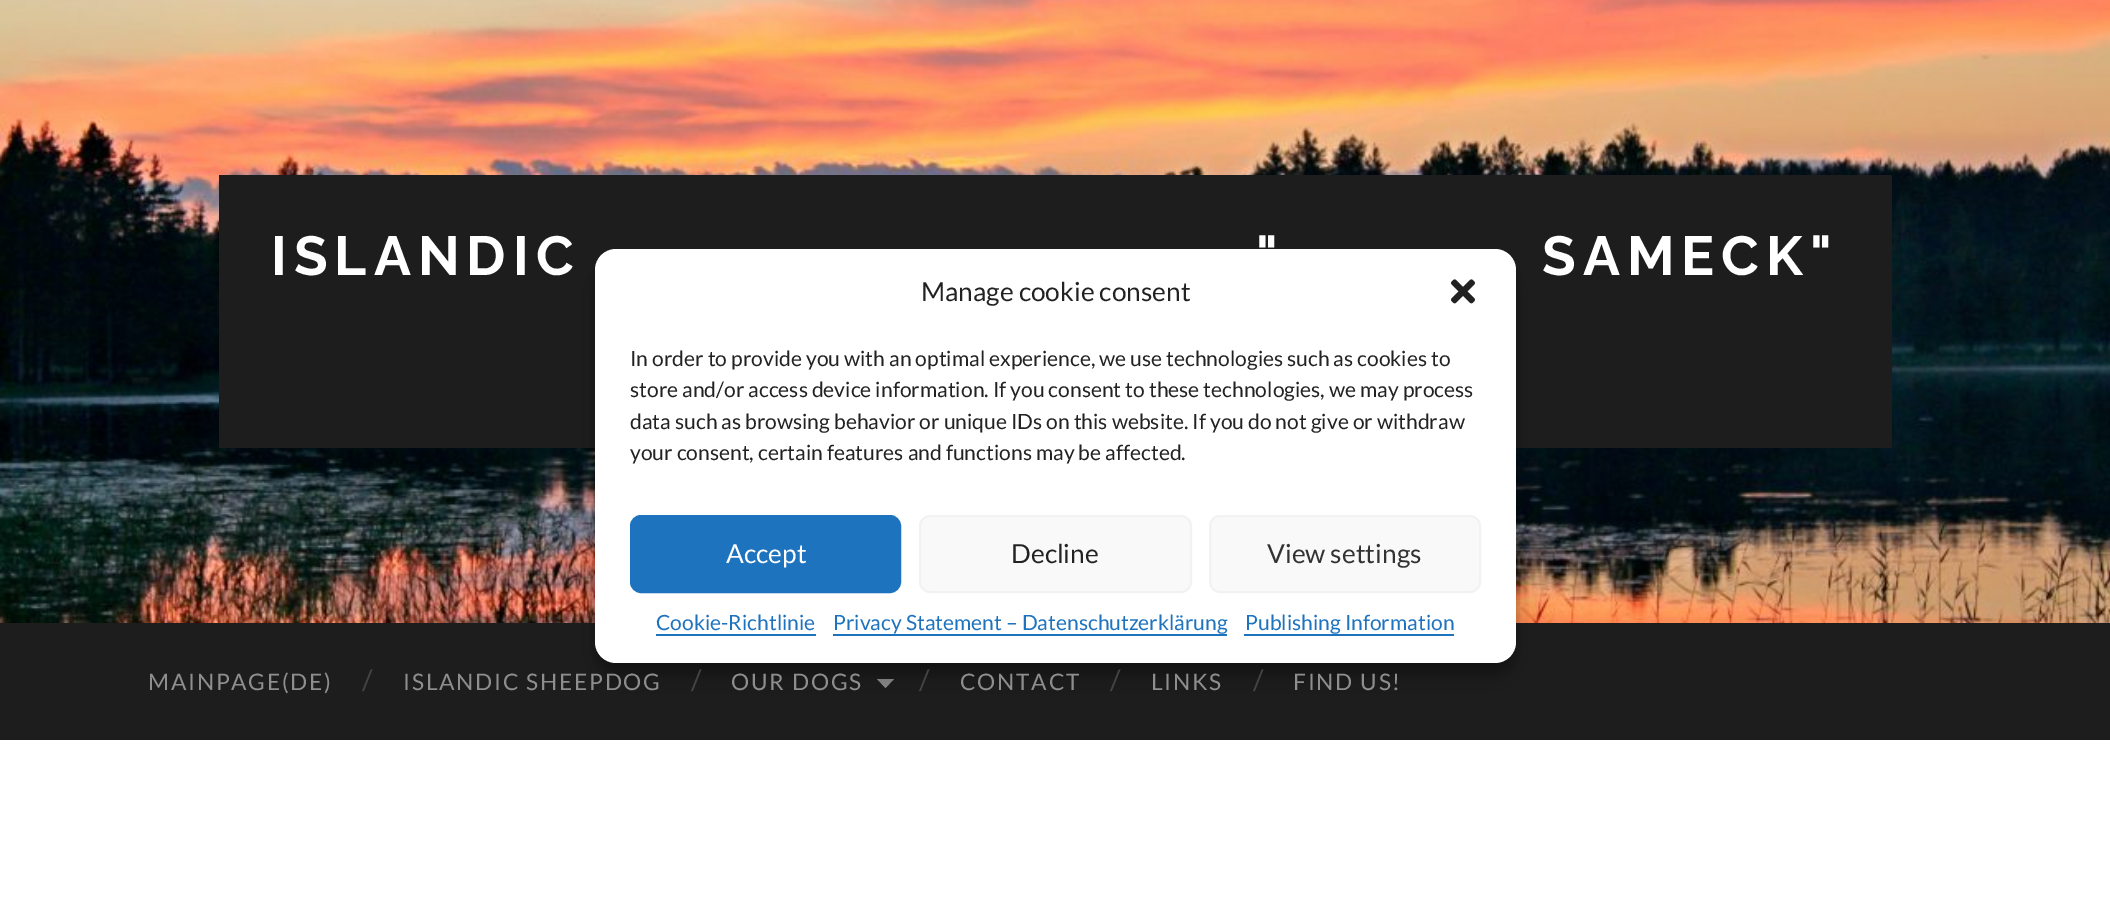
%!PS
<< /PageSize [2110 907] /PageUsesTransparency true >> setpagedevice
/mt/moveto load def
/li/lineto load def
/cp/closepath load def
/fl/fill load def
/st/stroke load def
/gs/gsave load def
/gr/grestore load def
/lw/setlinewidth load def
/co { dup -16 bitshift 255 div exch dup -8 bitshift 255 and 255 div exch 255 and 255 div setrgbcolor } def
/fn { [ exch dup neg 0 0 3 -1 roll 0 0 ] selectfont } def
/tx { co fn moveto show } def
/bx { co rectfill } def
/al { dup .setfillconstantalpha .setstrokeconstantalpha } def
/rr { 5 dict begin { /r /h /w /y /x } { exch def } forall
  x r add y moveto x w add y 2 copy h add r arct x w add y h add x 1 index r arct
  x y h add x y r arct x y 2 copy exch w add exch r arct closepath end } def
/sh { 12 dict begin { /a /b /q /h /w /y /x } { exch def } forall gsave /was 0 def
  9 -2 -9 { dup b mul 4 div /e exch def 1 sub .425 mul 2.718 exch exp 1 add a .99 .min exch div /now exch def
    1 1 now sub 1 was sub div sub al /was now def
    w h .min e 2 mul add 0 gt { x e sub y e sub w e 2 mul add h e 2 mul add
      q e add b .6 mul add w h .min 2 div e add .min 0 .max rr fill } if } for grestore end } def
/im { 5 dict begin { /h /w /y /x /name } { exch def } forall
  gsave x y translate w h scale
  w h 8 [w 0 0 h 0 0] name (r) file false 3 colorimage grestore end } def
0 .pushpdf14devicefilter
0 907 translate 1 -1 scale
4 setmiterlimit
0 0 2110 907 16#FFFFFF bx
(media/1.raw) 0 0 2110 623 im
219 175 1673 273 16#1D1D1D bx
0 623 2110 117 16#1D1D1D bx
16#8E8E8E co
877 679 mt 894 679 li 885.5 688 li cp fl
16#000000 co
595 259 921 415 21 5 .23 sh
595 266 921 415 21 17.5 .19 sh
16#FFFFFF co
595 249 921 414 21 rr fl
(media/2.raw) 1451 279 24 25 im
16#1E73BE co
631 516 269 76 10 rr gs fl gr
2 lw
st
16#F9F9F9 co
920 516 271 76 10 rr gs fl gr
16#F2F2F2 co
st
16#F9F9F9 co
1210 516 270 76 10 rr gs fl gr
16#F2F2F2 co
st
656 634 160 2 16#1E73BE bx
833 634 394 2 16#1E73BE bx
1244 634 210 2 16#1E73BE bx
/Raleway-Thin 55 fn
16#FFFFFF co
271 275 mt 7 0 (ISLANDIC) ashow
1256 275 mt 7 0 (") ashow
1542 275 mt 7 0 (SAMECK") ashow
/Lato-Regular 22.75 fn
16#8E8E8E co
148 690 mt 1.75 0 (MAINPAGE\(DE\)) ashow
(/) 362 690 /Lato-Regular 28 16#444444 tx
/Lato-Regular 22.75 fn
16#8E8E8E co
403 690 mt 1.75 0 (ISLANDIC SHEEPDOG) ashow
(/) 691 690 /Lato-Regular 28 16#444444 tx
/Lato-Regular 22.75 fn
16#8E8E8E co
731 690 mt 1.75 0 (OUR DOGS) ashow
(/) 919 690 /Lato-Regular 28 16#444444 tx
/Lato-Regular 22.75 fn
16#8E8E8E co
960 690 mt 1.75 0 (CONTACT) ashow
(/) 1110 690 /Lato-Regular 28 16#444444 tx
/Lato-Regular 22.75 fn
16#8E8E8E co
1151 690 mt 1.75 0 (LINKS) ashow
(/) 1253 690 /Lato-Regular 28 16#444444 tx
/Lato-Regular 22.75 fn
16#8E8E8E co
1293 690 mt 1.75 0 (FIND US!) ashow
(Manage cookie consent) 921 301 /Lato-Regular 26.25 16#222222 tx
(In order to provide you with an optimal experience, we use technologies such as cookies to) 630 366 /Lato-Regular 21 16#222222 tx
(store and/or access device information. If you consent to these technologies, we may process) 630 397 /Lato-Regular 21 16#222222 tx
(data such as browsing behavior or unique IDs on this website. If you do not give or withdraw) 630 429 /Lato-Regular 21 16#222222 tx
(your consent, certain features and functions may be affected.) 630 460 /Lato-Regular 21 16#222222 tx
(Accept) 726 563 /Lato-Regular 26.25 16#FFFFFF tx
(Decline) 1011 563 /Lato-Regular 26.25 16#222222 tx
(View settings) 1267 563 /Lato-Regular 26.25 16#333333 tx
(Cookie-Richtlinie) 656 630 /Lato-Regular 21 16#1E73BE tx
(Privacy Statement – Datenschutzerklärung) 833 630 /Lato-Regular 21 16#1E73BE tx
(Publishing Information) 1245 630 /Lato-Regular 21 16#1E73BE tx
.poppdf14devicefilter showpage
